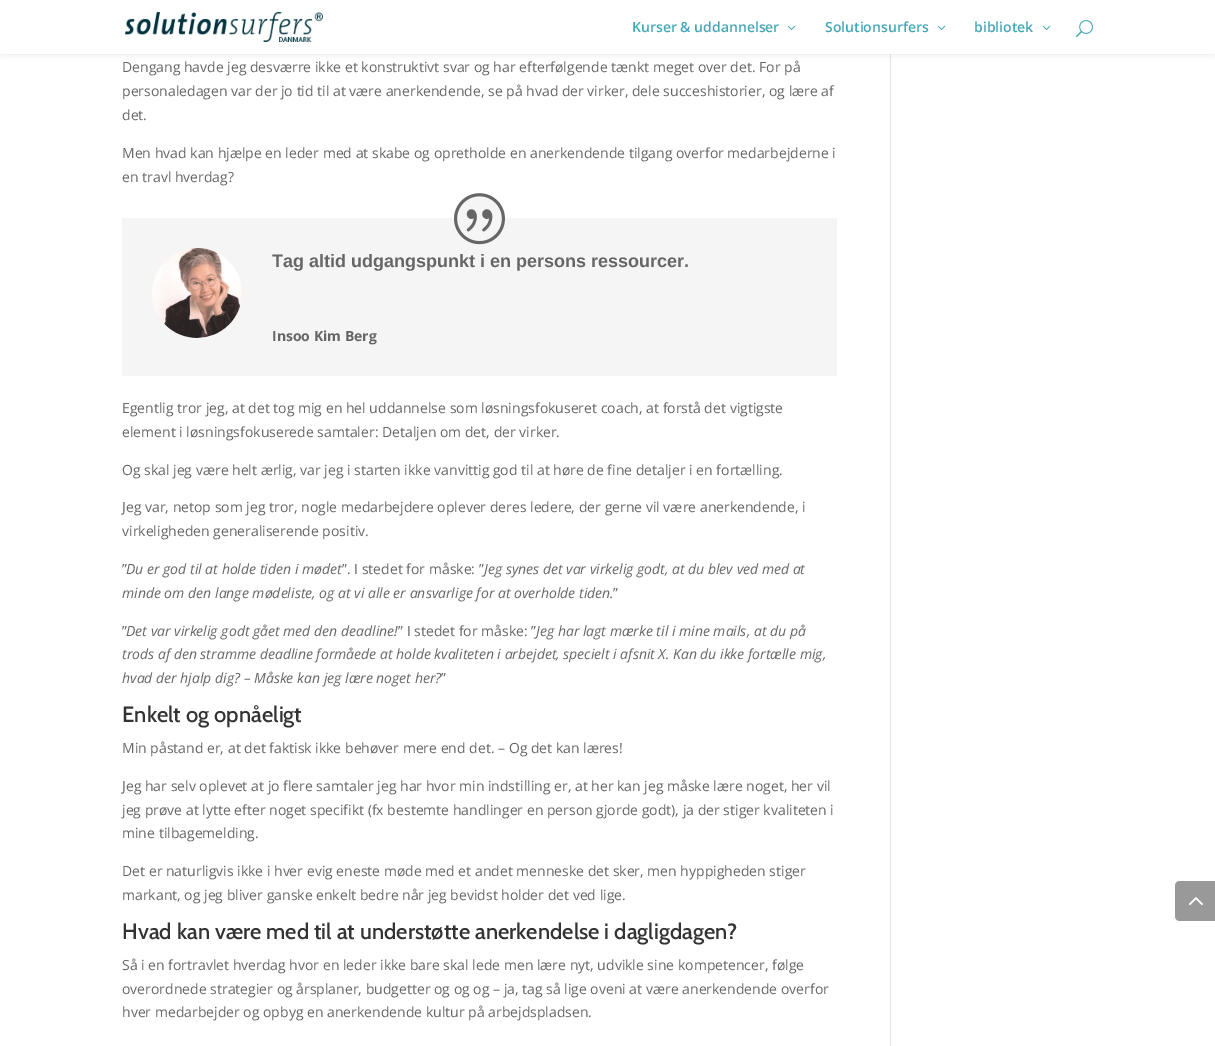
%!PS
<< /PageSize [1215 1046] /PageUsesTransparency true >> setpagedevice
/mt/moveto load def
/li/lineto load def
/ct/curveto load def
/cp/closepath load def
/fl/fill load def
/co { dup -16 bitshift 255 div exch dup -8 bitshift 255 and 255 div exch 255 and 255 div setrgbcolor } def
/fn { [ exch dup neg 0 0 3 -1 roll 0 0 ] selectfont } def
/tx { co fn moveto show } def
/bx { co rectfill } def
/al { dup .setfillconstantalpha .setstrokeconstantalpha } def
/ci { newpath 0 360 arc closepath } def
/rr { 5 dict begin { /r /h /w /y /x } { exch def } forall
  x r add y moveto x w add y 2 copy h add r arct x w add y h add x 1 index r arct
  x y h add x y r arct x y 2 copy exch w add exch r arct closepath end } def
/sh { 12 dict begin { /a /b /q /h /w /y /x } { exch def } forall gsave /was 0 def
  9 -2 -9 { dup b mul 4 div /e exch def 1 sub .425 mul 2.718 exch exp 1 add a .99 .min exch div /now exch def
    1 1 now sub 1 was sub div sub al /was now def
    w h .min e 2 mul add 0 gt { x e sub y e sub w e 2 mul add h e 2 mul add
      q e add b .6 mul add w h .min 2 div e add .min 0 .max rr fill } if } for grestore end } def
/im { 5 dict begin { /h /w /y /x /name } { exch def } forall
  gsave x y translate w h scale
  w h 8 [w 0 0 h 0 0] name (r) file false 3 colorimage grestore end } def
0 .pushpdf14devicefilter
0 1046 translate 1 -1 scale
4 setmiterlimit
0 0 1215 1046 16#FFFFFF bx
890 54 1 992 16#E2E2E2 bx
16#000000 co
0 0 1215 54 0 3.5 .1 sh
0 0 1215 54 16#FFFFFF bx
(media/1.raw) 125 12 198 30 im
(media/2.raw) 787 25 9 5 im
(media/2.raw) 937 25 9 5 im
(media/2.raw) 1042 25 9 5 im
(media/3.raw) 1076 20 17 18 im
122 218 715 158 16#F5F5F5 bx
479.5 218.5 25.5 ci fl
(media/4.raw) 454 193 51 52 im
(media/5.raw) 152 248 90 90 im
16#999999 co
1180 881 mt 1215 881 li 1215 921 li 1180 921 li 1177 921 1175 919 1175 916 ct 1175 886 li 1175 883 1177 881 1180 881 ct cp fl
(media/6.raw) 1189 897 14 8 im
(Kurser & uddannelser) 632 32 /OpenSans-SemiBold 14 16#42A7B5 tx
(Solutionsurfers) 825 32 /OpenSans-SemiBold 14 16#42A7B5 tx
(bibliotek) 974 32 /OpenSans-SemiBold 14 16#42A7B5 tx
(Dengang havde jeg desværre ikke et konstruktivt svar og har efterfølgende tænkt meget over det. For på) 122 72 /OpenSans-Regular 14 16#666666 tx
(personaledagen var der jo tid til at være anerkendende, se på hvad der virker, dele succeshistorier, og lære af) 122 96 /OpenSans-Regular 14 16#666666 tx
(det.) 122 120 /OpenSans-Regular 14 16#666666 tx
(Men hvad kan hjælpe en leder med at skabe og opretholde en anerkendende tilgang overfor medarbejderne i) 122 158 /OpenSans-Regular 14 16#666666 tx
(en travl hverdag?) 122 182 /OpenSans-Regular 14 16#666666 tx
(Tag altid udgangspunkt i en persons ressourcer.) 272 267 /LiberationSans-Bold 18 16#666666 tx
(Insoo Kim Berg) 272 341 /OpenSans-Bold 14 16#666666 tx
(Egentlig tror jeg, at det tog mig en hel uddannelse som løsningsfokuseret coach, at forstå det vigtigste) 122 413 /OpenSans-Regular 14 16#666666 tx
(element i løsningsfokuserede samtaler: Detaljen om det, der virker.) 122 437 /OpenSans-Regular 14 16#666666 tx
(Og skal jeg være helt ærlig, var jeg i starten ikke vanvittig god til at høre de fine detaljer i en fortælling.) 122 475 /OpenSans-Regular 14 16#666666 tx
(Jeg var, netop som jeg tror, nogle medarbejdere oplever deres ledere, der gerne vil være anerkendende, i) 122 512 /OpenSans-Regular 14 16#666666 tx
(virkeligheden generaliserende positiv.) 122 536 /OpenSans-Regular 14 16#666666 tx
(”) 122 574 /OpenSans-Regular 14 16#666666 tx
(Du er god til at holde tiden i mødet) 126 574 /OpenSans-Italic 14 16#666666 tx
(”. I stedet for måske: ”) 342 574 /OpenSans-Regular 14 16#666666 tx
(Jeg synes det var virkelig godt, at du blev ved med at) 484 574 /OpenSans-Italic 14 16#666666 tx
(minde om den lange mødeliste, og at vi alle er ansvarlige for at overholde tiden.) 122 598 /OpenSans-Italic 14 16#666666 tx
(”) 613 598 /OpenSans-Regular 14 16#666666 tx
(”) 122 636 /OpenSans-Regular 14 16#666666 tx
(Det var virkelig godt gået med den deadline!) 126 636 /OpenSans-Italic 14 16#666666 tx
(” I stedet for måske: ”) 398 636 /OpenSans-Regular 14 16#666666 tx
(Jeg har lagt mærke til i mine mails, at du på) 536 636 /OpenSans-Italic 14 16#666666 tx
(trods af den stramme deadline formåede at holde kvaliteten i arbejdet, specielt i afsnit X. Kan du ikke fortælle mig,) 122 659 /OpenSans-Italic 14 16#666666 tx
(hvad der hjalp dig? – Måske kan jeg lære noget her?) 122 683 /OpenSans-Italic 14 16#666666 tx
(”) 441 683 /OpenSans-Regular 14 16#666666 tx
(Enkelt og opnåeligt) 122 722 /Cabin-Medium 22 16#333333 tx
(Min påstand er, at det faktisk ikke behøver mere end det. – Og det kan læres!) 122 753 /OpenSans-Regular 14 16#666666 tx
(Jeg har selv oplevet at jo flere samtaler jeg har hvor min indstilling er, at her kan jeg måske lære noget, her vil) 122 791 /OpenSans-Regular 14 16#666666 tx
(jeg prøve at lytte efter noget specifikt \(fx bestemte handlinger en person gjorde godt\), ja der stiger kvaliteten i) 122 815 /OpenSans-Regular 14 16#666666 tx
(mine tilbagemelding.) 122 838 /OpenSans-Regular 14 16#666666 tx
(Det er naturligvis ikke i hver evig eneste møde med et andet menneske det sker, men hyppigheden stiger) 122 876 /OpenSans-Regular 14 16#666666 tx
(markant, og jeg bliver ganske enkelt bedre når jeg bevidst holder det ved lige.) 122 900 /OpenSans-Regular 14 16#666666 tx
(Hvad kan være med til at understøtte anerkendelse i dagligdagen?) 122 939 /Cabin-Medium 22 16#333333 tx
(Så i en fortravlet hverdag hvor en leder ikke bare skal lede men lære nyt, udvikle sine kompetencer, følge) 122 970 /OpenSans-Regular 14 16#666666 tx
(overordnede strategier og årsplaner, budgetter og og og – ja, tag så lige oveni at være anerkendende overfor) 122 994 /OpenSans-Regular 14 16#666666 tx
(hver medarbejder og opbyg en anerkendende kultur på arbejdspladsen.) 122 1017 /OpenSans-Regular 14 16#666666 tx
.poppdf14devicefilter showpage
